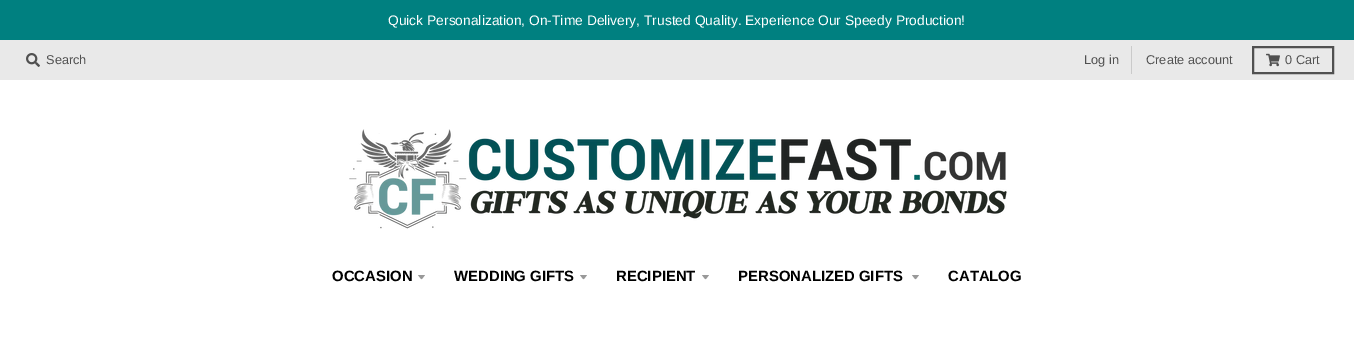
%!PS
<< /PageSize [1354 352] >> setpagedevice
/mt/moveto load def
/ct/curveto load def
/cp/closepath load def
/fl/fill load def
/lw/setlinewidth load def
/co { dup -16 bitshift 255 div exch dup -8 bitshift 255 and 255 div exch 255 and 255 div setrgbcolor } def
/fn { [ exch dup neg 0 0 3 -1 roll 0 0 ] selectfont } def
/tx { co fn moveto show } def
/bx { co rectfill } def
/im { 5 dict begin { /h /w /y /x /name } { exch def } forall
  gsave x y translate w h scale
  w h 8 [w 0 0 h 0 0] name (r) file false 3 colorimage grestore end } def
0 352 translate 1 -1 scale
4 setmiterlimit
0 0 1354 352 16#FFFFFF bx
0 0 1354 40 16#008080 bx
0 40 1354 40 16#E9E9E9 bx
(media/1.raw) 26 53 14 14 im
1131 46 1 28 16#CACACA bx
16#505050 co
2 lw
1253 47 80 26 rectstroke
(media/2.raw) 1266 53 14 14 im
(media/3.raw) 349 129 658 100 im
16#999999 co
418 275 mt 422.5 280.5 420.5 280.5 425 275 ct cp fl
580 275 mt 584.5 280.5 582.5 280.5 587 275 ct cp fl
702 275 mt 706.5 280.5 704.5 280.5 709 275 ct cp fl
912 275 mt 916.5 280.5 914.5 280.5 919 275 ct cp fl
(Quick Personalization, On-Time Delivery, Trusted Quality. Experience Our Speedy Production!) 388 25 /LiberationSans-Regular 13.8 16#FFFFFF tx
(Search) 46 64 /LiberationSans-Regular 12.75 16#505050 tx
(Log in) 1084 64 /LiberationSans-Regular 12.75 16#505050 tx
(Create account) 1146 64 /LiberationSans-Regular 12.75 16#505050 tx
(0 Cart) 1285 64 /LiberationSans-Regular 12.75 16#505050 tx
(OCCASION) 332 281 /LiberationSans-Bold 14.9 16#000000 tx
(WEDDING GIFTS) 454 281 /LiberationSans-Bold 14.9 16#000000 tx
(RECIPIENT) 616 281 /LiberationSans-Bold 14.9 16#000000 tx
(PERSONALIZED GIFTS) 738 281 /LiberationSans-Bold 14.9 16#000000 tx
(CATALOG) 948 281 /LiberationSans-Bold 14.9 16#000000 tx
showpage
